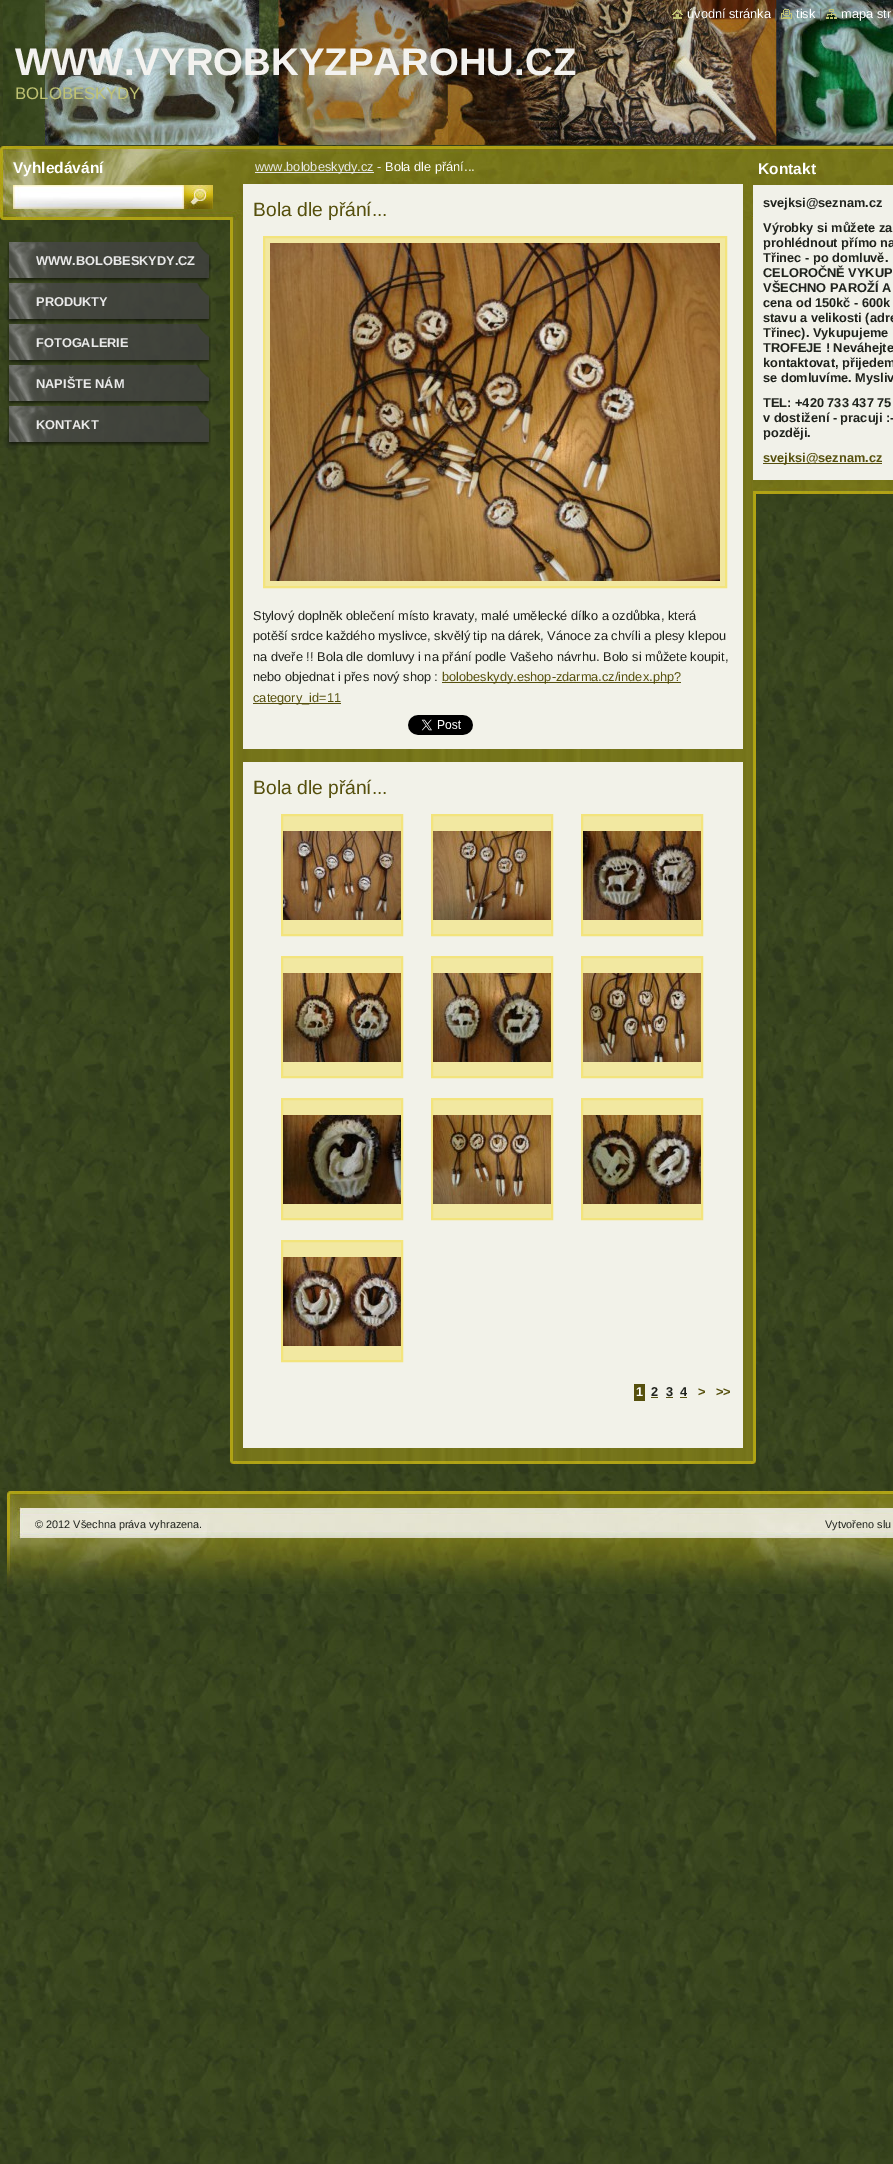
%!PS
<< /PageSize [893 2164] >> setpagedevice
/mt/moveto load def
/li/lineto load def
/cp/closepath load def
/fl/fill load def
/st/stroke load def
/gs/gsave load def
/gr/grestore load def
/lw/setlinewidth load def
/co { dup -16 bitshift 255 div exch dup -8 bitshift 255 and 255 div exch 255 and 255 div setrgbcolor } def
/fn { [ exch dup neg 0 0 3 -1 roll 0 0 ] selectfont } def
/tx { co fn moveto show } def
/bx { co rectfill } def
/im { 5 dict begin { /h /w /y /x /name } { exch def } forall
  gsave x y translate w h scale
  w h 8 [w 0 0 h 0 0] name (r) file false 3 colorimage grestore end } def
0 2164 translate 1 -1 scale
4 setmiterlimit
0 0 893 2164 16#FFFFFF bx
(media/1.raw) 0 1594 893 570 im
(media/2.raw) 0 0 893 1594 im
(media/6.raw) 3 0 890 145 im
(media/3.raw) 672 9 11 10 im
(media/4.raw) 781 9 11 10 im
(media/5.raw) 826 9 11 10 im
(media/7.raw) 0 146 893 74 im
(media/8.raw) 13 185 171 24 im
(media/9.raw) 184 185 29 24 im
(media/10.raw) 230 220 526 1241 im
(media/11.raw) 230 146 526 74 im
255 172 119 1 16#E9E9E9 bx
243 184 500 565 16#F2F2E9 bx
16#F2E8A1 co
264 237 mt 726 237 li 726 587 li 264 587 li cp gs fl gr
16#F3E47C co
2 lw
st
(media/12.raw) 270 243 450 338 im
442 682 239 1 16#56500D bx
253 703 88 1 16#56500D bx
(media/13.raw) 408 715 65 20 im
243 762 500 686 16#F2F2E9 bx
16#F2E8A1 co
282 815 mt 402 815 li 402 935 li 282 935 li cp gs fl gr
16#F3E47C co
st
(media/14.raw) 283 831 118 89 im
16#F2E8A1 co
432 815 mt 552 815 li 552 935 li 432 935 li cp gs fl gr
16#F3E47C co
st
(media/15.raw) 433 831 118 89 im
16#F2E8A1 co
582 815 mt 702 815 li 702 935 li 582 935 li cp gs fl gr
16#F3E47C co
st
(media/16.raw) 583 831 118 89 im
16#F2E8A1 co
282 957 mt 402 957 li 402 1077 li 282 1077 li cp gs fl gr
16#F3E47C co
st
(media/17.raw) 283 973 118 89 im
16#F2E8A1 co
432 957 mt 552 957 li 552 1077 li 432 1077 li cp gs fl gr
16#F3E47C co
st
(media/18.raw) 433 973 118 89 im
16#F2E8A1 co
582 957 mt 702 957 li 702 1077 li 582 1077 li cp gs fl gr
16#F3E47C co
st
(media/19.raw) 583 973 118 89 im
16#F2E8A1 co
282 1099 mt 402 1099 li 402 1219 li 282 1219 li cp gs fl gr
16#F3E47C co
st
(media/20.raw) 283 1115 118 89 im
16#F2E8A1 co
432 1099 mt 552 1099 li 552 1219 li 432 1219 li cp gs fl gr
16#F3E47C co
st
(media/21.raw) 433 1115 118 89 im
16#F2E8A1 co
582 1099 mt 702 1099 li 702 1219 li 582 1219 li cp gs fl gr
16#F3E47C co
st
(media/22.raw) 583 1115 118 89 im
16#F2E8A1 co
282 1241 mt 402 1241 li 402 1361 li 282 1361 li cp gs fl gr
16#F3E47C co
st
(media/23.raw) 283 1257 118 89 im
634 1384 11 17 16#56500D bx
651 1397 7 1 16#56500D bx
666 1397 7 1 16#56500D bx
680 1397 7 1 16#56500D bx
(media/24.raw) 230 1461 526 3 im
753 185 140 295 16#F1F1E9 bx
763 463 119 1 16#56500D bx
(media/25.raw) 753 480 140 14 im
(media/26.raw) 7 242 204 40 im
(media/27.raw) 7 283 204 40 im
(media/28.raw) 7 324 204 40 im
(media/29.raw) 7 365 204 40 im
(media/30.raw) 7 406 204 40 im
(media/31.raw) 7 1491 886 103 im
(úvodní stránka) 687 18 /LiberationSans-Regular 12.8 16#FFFFFF tx
(|) 774 18 /LiberationSans-Regular 12.8 16#646464 tx
(tisk) 796 18 /LiberationSans-Regular 12.8 16#FFFFFF tx
(|) 819 18 /LiberationSans-Regular 12.8 16#646464 tx
(mapa str) 841 18 /LiberationSans-Regular 12.8 16#FFFFFF tx
(WWW.VYROBKYZPAROHU.CZ) 15 75 /LiberationSans-Bold 38.4 16#F3F2EF tx
(BOLOBESKYDY) 15 99 /LiberationSans-Regular 16.75 16#BFC273 tx
(Vyhledávání) 13 173 /LiberationSans-Bold 15.5 16#FFFFFF tx
(www.bolobeskydy.cz -) 255 171 /LiberationSans-Regular 12.8 16#E9E9E9 tx
(Bola dle přání...) 385 171 /LiberationSans-Regular 12.8 16#FFFFFF tx
(Bola dle přání...) 253 216 /LiberationSans-Regular 19.25 16#56500D tx
(Stylový doplněk oblečení místo kravaty, malé umělecké dílko a ozdůbka, která) 253 620 /LiberationSans-Regular 12.8 16#1F221C tx
(potěší srdce každého myslivce, skvělý tip na dárek, Vánoce za chvíli a plesy klepou) 253 640 /LiberationSans-Regular 12.8 16#1F221C tx
(na dveře !! Bola dle domluvy i na přání podle Vašeho návrhu. Bolo si můžete koupit,) 253 661 /LiberationSans-Regular 12.8 16#1F221C tx
(nebo objednat i přes nový shop :) 253 681 /LiberationSans-Regular 12.8 16#1F221C tx
(bolobeskydy.eshop-zdarma.cz/index.php?) 442 681 /LiberationSans-Regular 12.8 16#56500D tx
(category_id=11) 253 702 /LiberationSans-Regular 12.8 16#56500D tx
(Bola dle přání...) 253 794 /LiberationSans-Regular 19.25 16#56500D tx
(1) 636 1396 /LiberationSans-Bold 12.8 16#FFFFFF tx
(2) 651 1396 /LiberationSans-Bold 12.8 16#1F221C tx
(3) 666 1396 /LiberationSans-Bold 12.8 16#1F221C tx
(4) 680 1396 /LiberationSans-Bold 12.8 16#1F221C tx
(>) 698 1396 /LiberationSans-Bold 12.8 16#56500D tx
(>>) 716 1396 /LiberationSans-Bold 12.8 16#56500D tx
(Kontakt) 758 174 /LiberationSans-Bold 15.5 16#FFFFFF tx
(svejksi@seznam.cz) 763 207 /LiberationSans-Bold 12.8 16#1F221C tx
(Výrobky si můžete za) 763 232 /LiberationSans-Bold 12.8 16#1F221C tx
(prohlédnout přímo na) 763 247 /LiberationSans-Bold 12.8 16#1F221C tx
(Třinec - po domluvě.) 763 262 /LiberationSans-Bold 12.8 16#1F221C tx
(CELOROČNĚ VYKUP) 763 277 /LiberationSans-Bold 12.8 16#1F221C tx
(VŠECHNO PAROŽÍ A) 763 292 /LiberationSans-Bold 12.8 16#1F221C tx
(cena od 150kč - 600k) 763 307 /LiberationSans-Bold 12.8 16#1F221C tx
(stavu a velikosti \(adre) 763 322 /LiberationSans-Bold 12.8 16#1F221C tx
(Třinec\). Vykupujeme) 763 337 /LiberationSans-Bold 12.8 16#1F221C tx
(TROFEJE ! Neváhejte) 763 352 /LiberationSans-Bold 12.8 16#1F221C tx
(kontaktovat, přijedem) 763 367 /LiberationSans-Bold 12.8 16#1F221C tx
(se domluvíme. Mysliv) 763 382 /LiberationSans-Bold 12.8 16#1F221C tx
(TEL: +420 733 437 75) 763 407 /LiberationSans-Bold 12.8 16#1F221C tx
(v dostižení - pracuji :-) 763 422 /LiberationSans-Bold 12.8 16#1F221C tx
(později.) 763 437 /LiberationSans-Bold 12.8 16#1F221C tx
(svejksi@seznam.cz) 763 462 /LiberationSans-Bold 12.8 16#56500D tx
(WWW.BOLOBESKYDY.CZ) 36 265 /LiberationSans-Bold 12.8 16#E9E9E9 tx
(PRODUKTY) 36 306 /LiberationSans-Bold 12.8 16#E9E9E9 tx
(FOTOGALERIE) 36 347 /LiberationSans-Bold 12.8 16#E9E9E9 tx
(NAPIŠTE NÁM) 36 388 /LiberationSans-Bold 12.8 16#E9E9E9 tx
(KONTAKT) 36 429 /LiberationSans-Bold 12.8 16#E9E9E9 tx
(© 2012 Všechna práva vyhrazena.) 35 1528 /LiberationSans-Regular 10.9 16#1F221C tx
(Vytvořeno slu) 825 1528 /LiberationSans-Regular 10.9 16#1F221C tx
showpage
